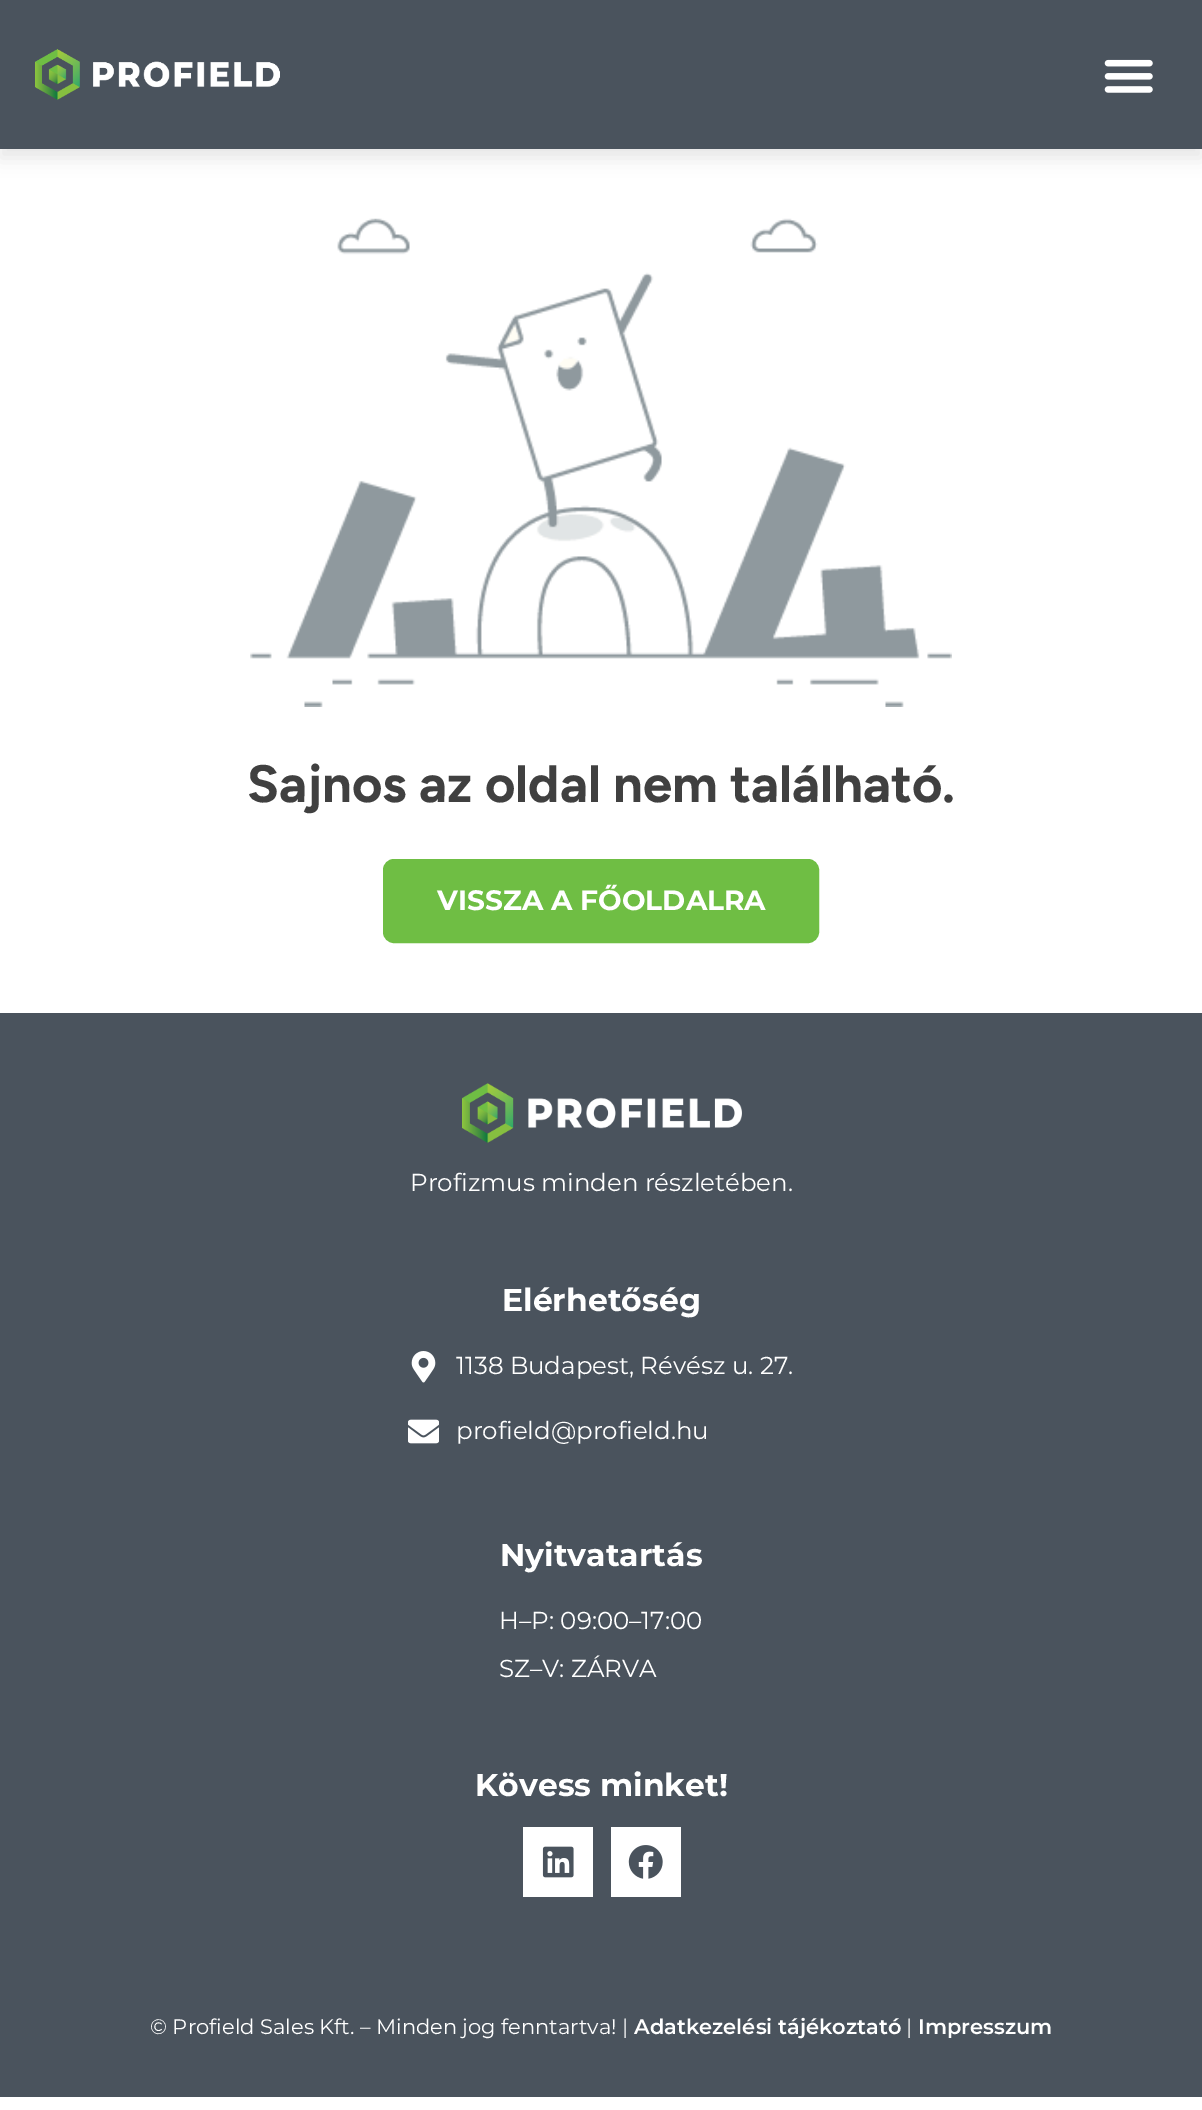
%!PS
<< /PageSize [1202 2110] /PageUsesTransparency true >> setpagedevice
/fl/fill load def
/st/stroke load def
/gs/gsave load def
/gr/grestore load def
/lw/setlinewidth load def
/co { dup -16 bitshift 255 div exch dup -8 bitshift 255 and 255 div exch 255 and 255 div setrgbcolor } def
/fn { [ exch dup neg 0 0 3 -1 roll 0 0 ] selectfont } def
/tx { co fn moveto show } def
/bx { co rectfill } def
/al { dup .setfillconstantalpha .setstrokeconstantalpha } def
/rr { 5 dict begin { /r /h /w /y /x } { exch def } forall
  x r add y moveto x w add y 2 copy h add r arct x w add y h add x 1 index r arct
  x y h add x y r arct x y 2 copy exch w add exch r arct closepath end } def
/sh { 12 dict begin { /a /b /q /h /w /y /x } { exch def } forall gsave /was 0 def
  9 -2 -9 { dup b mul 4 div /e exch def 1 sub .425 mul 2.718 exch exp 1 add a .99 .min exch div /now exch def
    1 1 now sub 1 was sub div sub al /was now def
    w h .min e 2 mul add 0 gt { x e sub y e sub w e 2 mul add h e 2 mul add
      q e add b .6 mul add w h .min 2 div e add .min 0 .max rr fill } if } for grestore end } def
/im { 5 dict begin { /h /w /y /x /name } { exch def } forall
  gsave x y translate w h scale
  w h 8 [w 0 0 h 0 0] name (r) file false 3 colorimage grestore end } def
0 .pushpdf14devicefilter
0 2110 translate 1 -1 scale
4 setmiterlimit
0 0 1202 2110 16#FFFFFF bx
16#000000 co
0 9 1202 149 0 9 .1 sh
0 0 1202 149 16#4A535D bx
(media/1.raw) 35 49 245 51 im
(media/2.raw) 1104 59 49 34 im
(media/3.raw) 250 218 702 489 im
16#6FBE44 co
384 860 434 82 10 rr gs fl gr
2 lw
st
0 1013 1202 1084 16#4A535D bx
(media/4.raw) 462 1083 280 60 im
(media/5.raw) 411 1351 25 32 im
(media/6.raw) 408 1419 31 25 im
523 1827 70 70 16#FFFFFF bx
(media/7.raw) 542 1846 32 32 im
611 1827 70 70 16#FFFFFF bx
(media/8.raw) 628 1845 35 34 im
(Sajnos az oldal nem található.) 247 802 /Figtree-Bold 52.5 16#404040 tx
(VISSZA A FŐOLDALRA) 437 910 /Montserrat-Bold 28 16#FFFFFF tx
(Profizmus minden részletében.) 410 1191 /Montserrat-Regular 24.5 16#FFFFFF tx
(Elérhetőség) 502 1311 /Montserrat-Bold 31.5 16#FFFFFF tx
(1138 Budapest, Révész u. 27.) 456 1374 /Montserrat-Regular 24.5 16#FFFFFF tx
(profield@profield.hu) 456 1439 /Montserrat-Regular 24.5 16#FFFFFF tx
(Nyitvatartás) 500 1566 /Montserrat-Bold 31.5 16#FFFFFF tx
(H–P: 09:00–17:00) 499 1629 /Montserrat-Regular 24.5 16#FFFFFF tx
(SZ–V: ZÁRVA) 499 1677 /Montserrat-Regular 24.5 16#FFFFFF tx
(Kövess minket!) 475 1796 /Montserrat-Bold 31.5 16#FFFFFF tx
(© Profield Sales Kft. – Minden jog fenntartva! |) 150 2034 /Montserrat-Regular 21 16#FFFFFF tx
(Adatkezelési tájékoztató) 634 2034 /Montserrat-SemiBold 21 16#FFFFFF tx
(|) 906 2034 /Montserrat-Regular 21 16#FFFFFF tx
(Impresszum) 918 2034 /Montserrat-SemiBold 21 16#FFFFFF tx
.poppdf14devicefilter showpage
